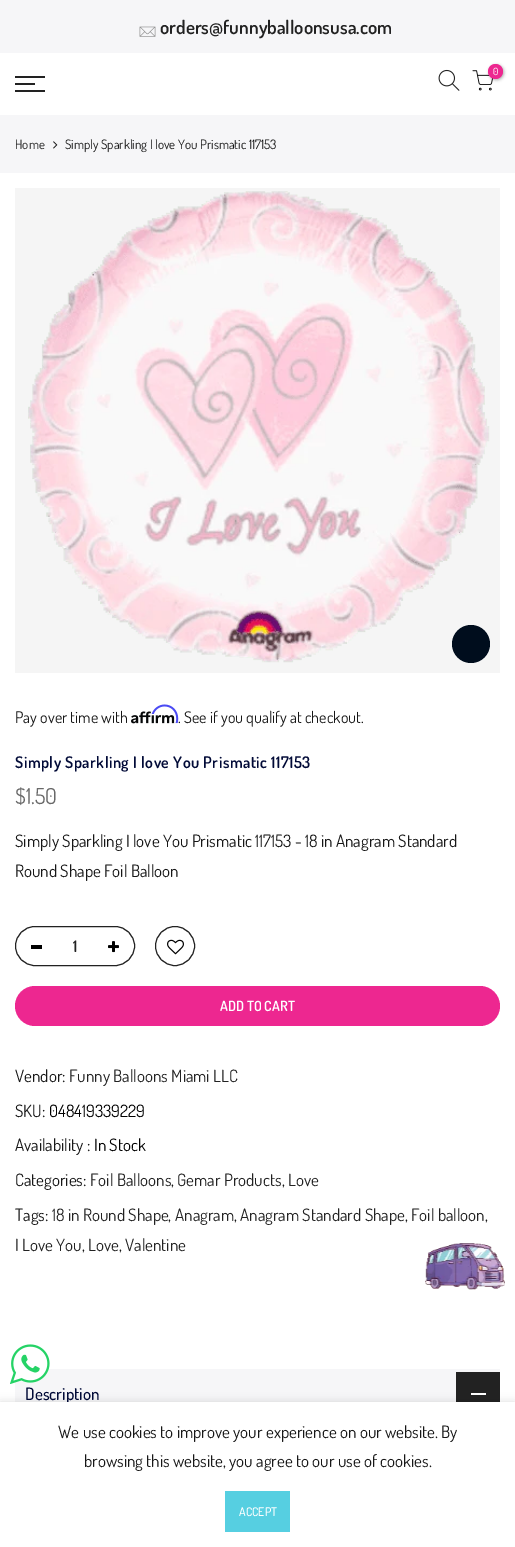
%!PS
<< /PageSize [515 1547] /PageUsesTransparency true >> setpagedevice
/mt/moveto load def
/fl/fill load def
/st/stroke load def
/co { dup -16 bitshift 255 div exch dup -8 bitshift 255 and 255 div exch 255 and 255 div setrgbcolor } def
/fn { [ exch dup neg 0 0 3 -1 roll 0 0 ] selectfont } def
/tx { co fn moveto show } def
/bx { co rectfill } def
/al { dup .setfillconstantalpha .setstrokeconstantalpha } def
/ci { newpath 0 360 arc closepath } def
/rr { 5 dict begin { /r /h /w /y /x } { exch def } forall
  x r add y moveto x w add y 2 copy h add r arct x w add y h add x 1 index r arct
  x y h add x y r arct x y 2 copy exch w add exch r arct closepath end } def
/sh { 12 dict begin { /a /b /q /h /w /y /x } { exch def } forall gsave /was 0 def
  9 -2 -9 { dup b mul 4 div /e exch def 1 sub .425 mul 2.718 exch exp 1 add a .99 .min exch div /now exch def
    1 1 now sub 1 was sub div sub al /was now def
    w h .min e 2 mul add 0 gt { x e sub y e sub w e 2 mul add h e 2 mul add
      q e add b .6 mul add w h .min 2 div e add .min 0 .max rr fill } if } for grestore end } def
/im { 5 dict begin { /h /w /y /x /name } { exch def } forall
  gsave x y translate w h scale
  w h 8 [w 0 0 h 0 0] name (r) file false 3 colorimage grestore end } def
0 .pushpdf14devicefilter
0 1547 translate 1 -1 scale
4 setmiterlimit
0 0 515 1547 16#FFFFFF bx
0 0 515 53 16#F6F6F8 bx
(media/1.raw) 139 26 17 11 im
(media/2.raw) 438 69 22 22 im
(media/3.raw) 472 70 21 21 im
16#000000 co
489 65 15 15 7.5 1.5 .3 sh
16#ED2790 co
495.5 71.5 7.5 ci fl
15 76 30 2 16#222222 bx
15 83 20 2 16#222222 bx
15 90 30 2 16#222222 bx
0 115 515 58 16#F6F6F8 bx
(media/4.raw) 53 141 5 8 im
15 188 485 485 16#F5F5F5 bx
(media/5.raw) 28 191 462 472 im
16#000D1D co
471 644 19 ci fl
(media/7.raw) 131 711 44 13 im
16#222222 co
15.5 926.5 119 39 19.5 rr st
31 945 11 4 16#000000 bx
(media/8.raw) 108 941 11 12 im
16#222222 co
175 946 19.5 ci st
(media/9.raw) 167 939 17 16 im
16#ED2790 co
15 986 485 40 20 rr fl
15 1369 485 33 16#F6F6F8 bx
456 1372 44 30 16#222222 bx
471 1393 15 2 16#FFFFFF bx
(media/10.raw) 425 1243 80 47 im
(media/11.raw) 10 1344 40 40 im
16#000000 co
0 1402 515 145 0 4.5 .14 sh
(orders@funnyballoonsusa.com) 160 34 /Dosis-SemiBold 19 16#222222 tx
(0) 493 75 /Dosis-Regular 10 16#FFFFFF tx
(Home) 15 149 /Dosis-Regular 13 16#222222 tx
(Simply Sparkling I love You Prismatic 117153) 65 149 /Dosis-Regular 13 16#171717 tx
(Pay over time with) 15 723 /Dosis-Regular 16 16#171717 tx
(. See if you qualify at checkout.) 178 723 /Dosis-Regular 16 16#171717 tx
(media/6.raw) 151 704 28 20 im
/Dosis-SemiBold 16 fn
16#010A37 co
15 768 mt .5 0 (Simply Sparkling I love You Prismatic 117153) ashow
($1.50) 15 804 /Dosis-Regular 22 16#696969 tx
(Simply Sparkling I love You Prismatic 117153 - 18 in Anagram Standard) 15 847 /Dosis-Regular 17 16#171717 tx
(Round Shape Foil Balloon) 15 877 /Dosis-Regular 17 16#171717 tx
(1) 73 952 /Dosis-SemiBold 16 16#222222 tx
(ADD TO CART) 220 1011 /Dosis-SemiBold 14 16#FFFFFF tx
(Vendor:) 15 1082 /Dosis-Regular 17 16#171717 tx
(Funny Balloons Miami LLC) 69 1082 /Dosis-Regular 17 16#222222 tx
(SKU:) 15 1117 /Dosis-Regular 17 16#171717 tx
(048419339229) 49 1117 /Dosis-Regular 17 16#000000 tx
(Availability :) 15 1151 /Dosis-Regular 17 16#171717 tx
(In Stock) 94 1151 /Dosis-Regular 17 16#000000 tx
(Categories:) 15 1186 /Dosis-Regular 17 16#171717 tx
(Foil Balloons) 90 1186 /Dosis-Regular 17 16#222222 tx
(,) 171 1186 /Dosis-Regular 17 16#171717 tx
(Gemar Products) 177 1186 /Dosis-Regular 17 16#222222 tx
(,) 282 1186 /Dosis-Regular 17 16#171717 tx
(Love) 288 1186 /Dosis-Regular 17 16#222222 tx
(Tags:) 15 1221 /Dosis-Regular 17 16#171717 tx
(18 in Round Shape) 52 1221 /Dosis-Regular 17 16#222222 tx
(,) 168 1221 /Dosis-Regular 17 16#171717 tx
(Anagram) 175 1221 /Dosis-Regular 17 16#222222 tx
(,) 234 1221 /Dosis-Regular 17 16#171717 tx
(Anagram Standard Shape) 240 1221 /Dosis-Regular 17 16#222222 tx
(,) 405 1221 /Dosis-Regular 17 16#171717 tx
(Foil balloon) 411 1221 /Dosis-Regular 17 16#222222 tx
(,) 485 1221 /Dosis-Regular 17 16#171717 tx
(I Love You) 15 1251 /Dosis-Regular 17 16#222222 tx
(,) 82 1251 /Dosis-Regular 17 16#171717 tx
(Love) 88 1251 /Dosis-Regular 17 16#222222 tx
(,) 119 1251 /Dosis-Regular 17 16#171717 tx
(Valentine) 125 1251 /Dosis-Regular 17 16#222222 tx
(Description) 25 1400 /Dosis-Medium 17 16#010A37 tx
0 1402 515 145 16#FFFFFF bx
(We use cookies to improve your experience on our website. By) 58 1438 /Dosis-Regular 17 16#171717 tx
(browsing this website, you agree to our use of cookies.) 84 1467 /Dosis-Regular 17 16#171717 tx
225 1491 65 41 16#56CFE1 bx
(ACCEPT) 239 1516 /Dosis-Medium 12 16#FFFFFF tx
.poppdf14devicefilter showpage
